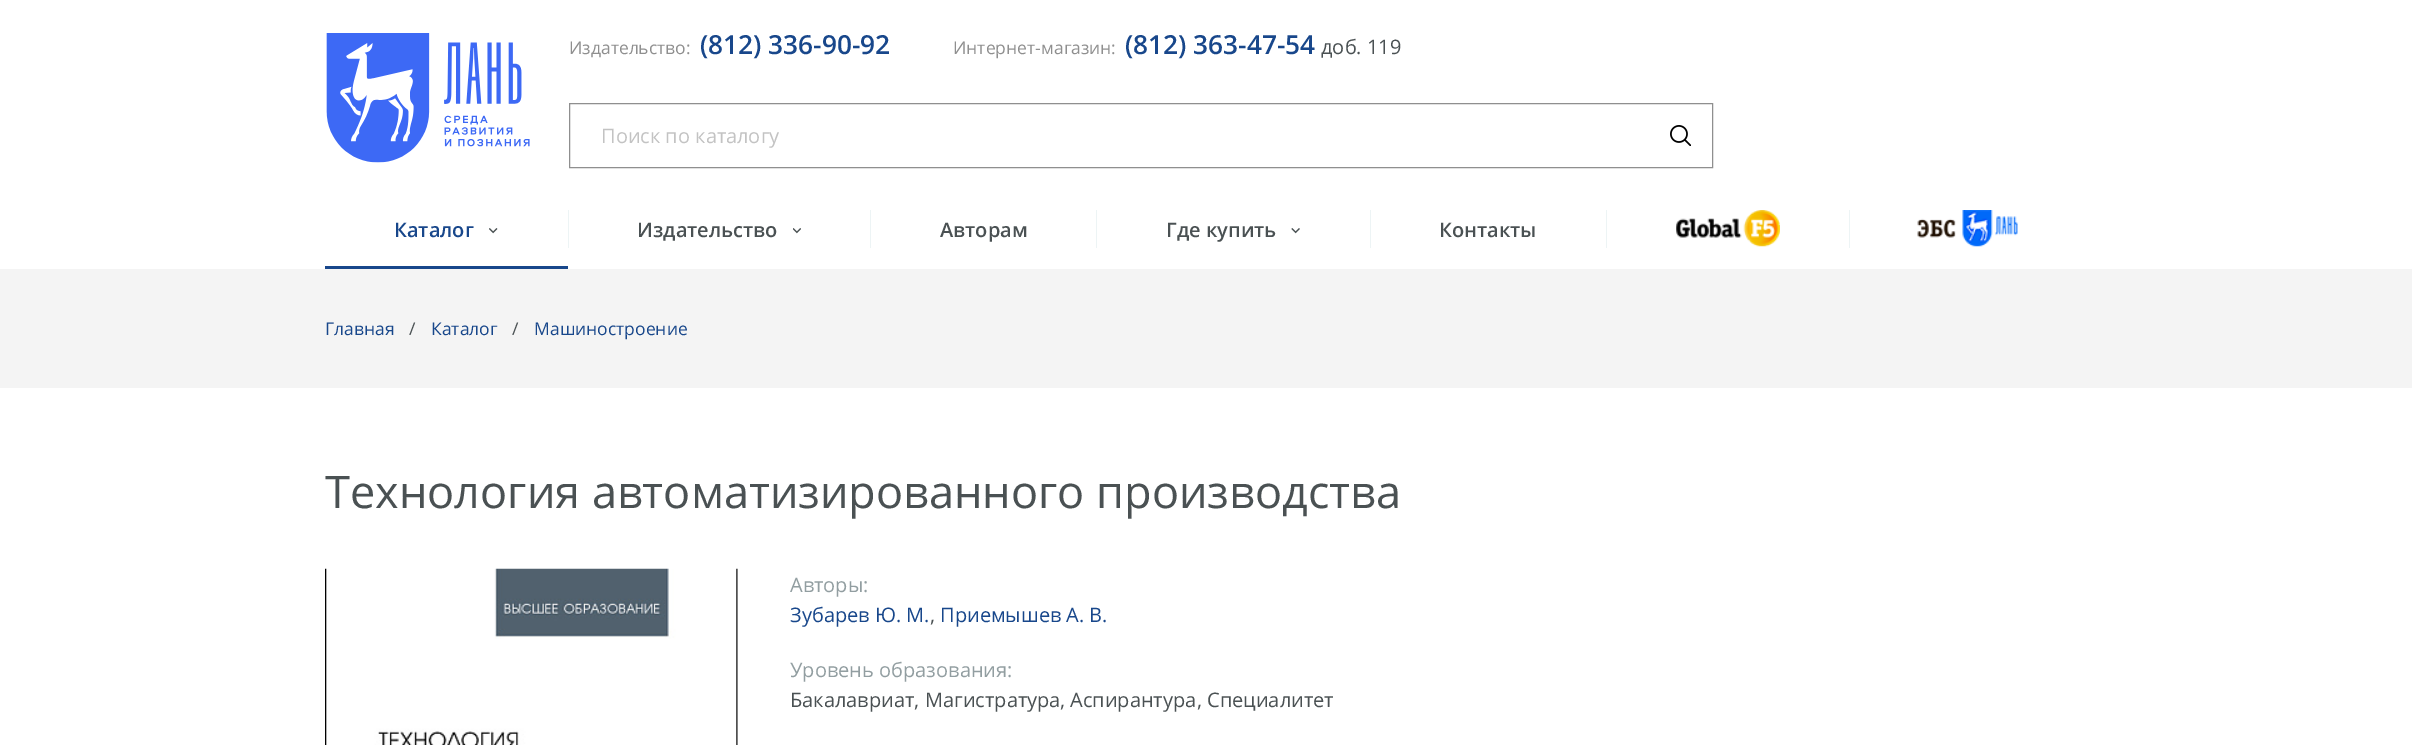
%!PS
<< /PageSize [2412 745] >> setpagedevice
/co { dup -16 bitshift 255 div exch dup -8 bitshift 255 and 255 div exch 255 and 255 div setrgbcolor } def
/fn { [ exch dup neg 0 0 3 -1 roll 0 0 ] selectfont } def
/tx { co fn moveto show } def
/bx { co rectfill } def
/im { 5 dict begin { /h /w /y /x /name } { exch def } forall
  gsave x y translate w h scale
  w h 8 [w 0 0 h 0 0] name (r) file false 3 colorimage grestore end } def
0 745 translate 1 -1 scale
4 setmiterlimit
0 0 2412 745 16#FFFFFF bx
(media/1.raw) 326 33 204 130 im
16#8F8F8F co
569.5 103.5 1143 64 rectstroke
(media/2.raw) 1670 125 21 21 im
325 266 243 3 16#18478B bx
(media/3.raw) 489 228 9 6 im
568 210 1 38 16#EDF4F5 bx
(media/4.raw) 793 228 8 6 im
870 210 1 38 16#EDF4F5 bx
1096 210 1 38 16#EDF4F5 bx
(media/5.raw) 1291 228 9 6 im
1370 210 1 38 16#EDF4F5 bx
1606 210 1 38 16#EDF4F5 bx
(media/6.raw) 1676 210 104 37 im
1849 210 1 38 16#EDF4F5 bx
(media/7.raw) 1917 210 101 37 im
0 269 2412 119 16#F4F4F4 bx
(media/8.raw) 325 568 413 177 im
(Издательство) 569 54 /OpenSans-Regular 17.5 16#8F8F8F tx
(:) 686 54 /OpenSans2-Regular 17.5 16#8F8F8F tx
(\(812\) 336-90-92) 700 54 /OpenSans-SemiBold 26.25 16#18478B tx
(Интернет) 953 54 /OpenSans-Regular 17.5 16#8F8F8F tx
(-) 1035 54 /OpenSans2-Regular 17.5 16#8F8F8F tx
(магазин) 1041 54 /OpenSans-Regular 17.5 16#8F8F8F tx
(:) 1111 54 /OpenSans2-Regular 17.5 16#8F8F8F tx
(\(812\) 363-47-54) 1125 54 /OpenSans-SemiBold 26.25 16#18478B tx
(доб. 119) 1321 54 /OpenSans2-Regular 20 16#4A5153 tx
(Поиск по каталогу) 601 143 /OpenSans-Regular 20 16#C3C3C3 tx
(Каталог) 394 237 /OpenSans2-SemiBold 20 16#18478B tx
(Издательство) 637 237 /OpenSans2-SemiBold 20 16#4A5153 tx
(Авторам) 940 237 /OpenSans2-SemiBold 20 16#4A5153 tx
(Где купить) 1166 237 /OpenSans2-SemiBold 20 16#4A5153 tx
(Контакты) 1439 237 /OpenSans2-SemiBold 20 16#4A5153 tx
(Главная) 325 335 /OpenSans-Regular 17.5 16#18478B tx
(/) 409 335 /OpenSans2-Regular 17.5 16#4A5153 tx
(Каталог) 431 335 /OpenSans-Regular 17.5 16#18478B tx
(/) 512 335 /OpenSans2-Regular 17.5 16#4A5153 tx
(Машиностроение) 534 335 /OpenSans-Regular 17.5 16#18478B tx
(Технология автоматизированного производства) 325 508 /OpenSans-Regular 45 16#4A5153 tx
(Авторы) 790 592 /OpenSans-Regular 20 16#929EA1 tx
(:) 863 592 /OpenSans2-Regular 20 16#929EA1 tx
(Зубарев Ю) 790 622 /OpenSans-Regular 20 16#18478B tx
(.) 896 622 /OpenSans2-Regular 20 16#18478B tx
(М) 906 622 /OpenSans-Regular 20 16#18478B tx
(.) 924 622 /OpenSans2-Regular 20 16#18478B tx
(,) 930 622 /OpenSans2-Regular 20 16#4A5153 tx
(Приемышев А) 940 622 /OpenSans-Regular 20 16#18478B tx
(.) 1079 622 /OpenSans2-Regular 20 16#18478B tx
(В) 1089 622 /OpenSans-Regular 20 16#18478B tx
(.) 1102 622 /OpenSans2-Regular 20 16#18478B tx
(Уровень образования) 790 677 /OpenSans-Regular 20 16#929EA1 tx
(:) 1007 677 /OpenSans2-Regular 20 16#929EA1 tx
(Бакалавриат) 790 707 /OpenSans-Regular 20 16#4A5153 tx
(,) 914 707 /OpenSans2-Regular 20 16#4A5153 tx
(Магистратура) 925 707 /OpenSans-Regular 20 16#4A5153 tx
(,) 1060 707 /OpenSans2-Regular 20 16#4A5153 tx
(Аспирантура) 1070 707 /OpenSans-Regular 20 16#4A5153 tx
(,) 1197 707 /OpenSans2-Regular 20 16#4A5153 tx
(Специалитет) 1207 707 /OpenSans-Regular 20 16#4A5153 tx
showpage
